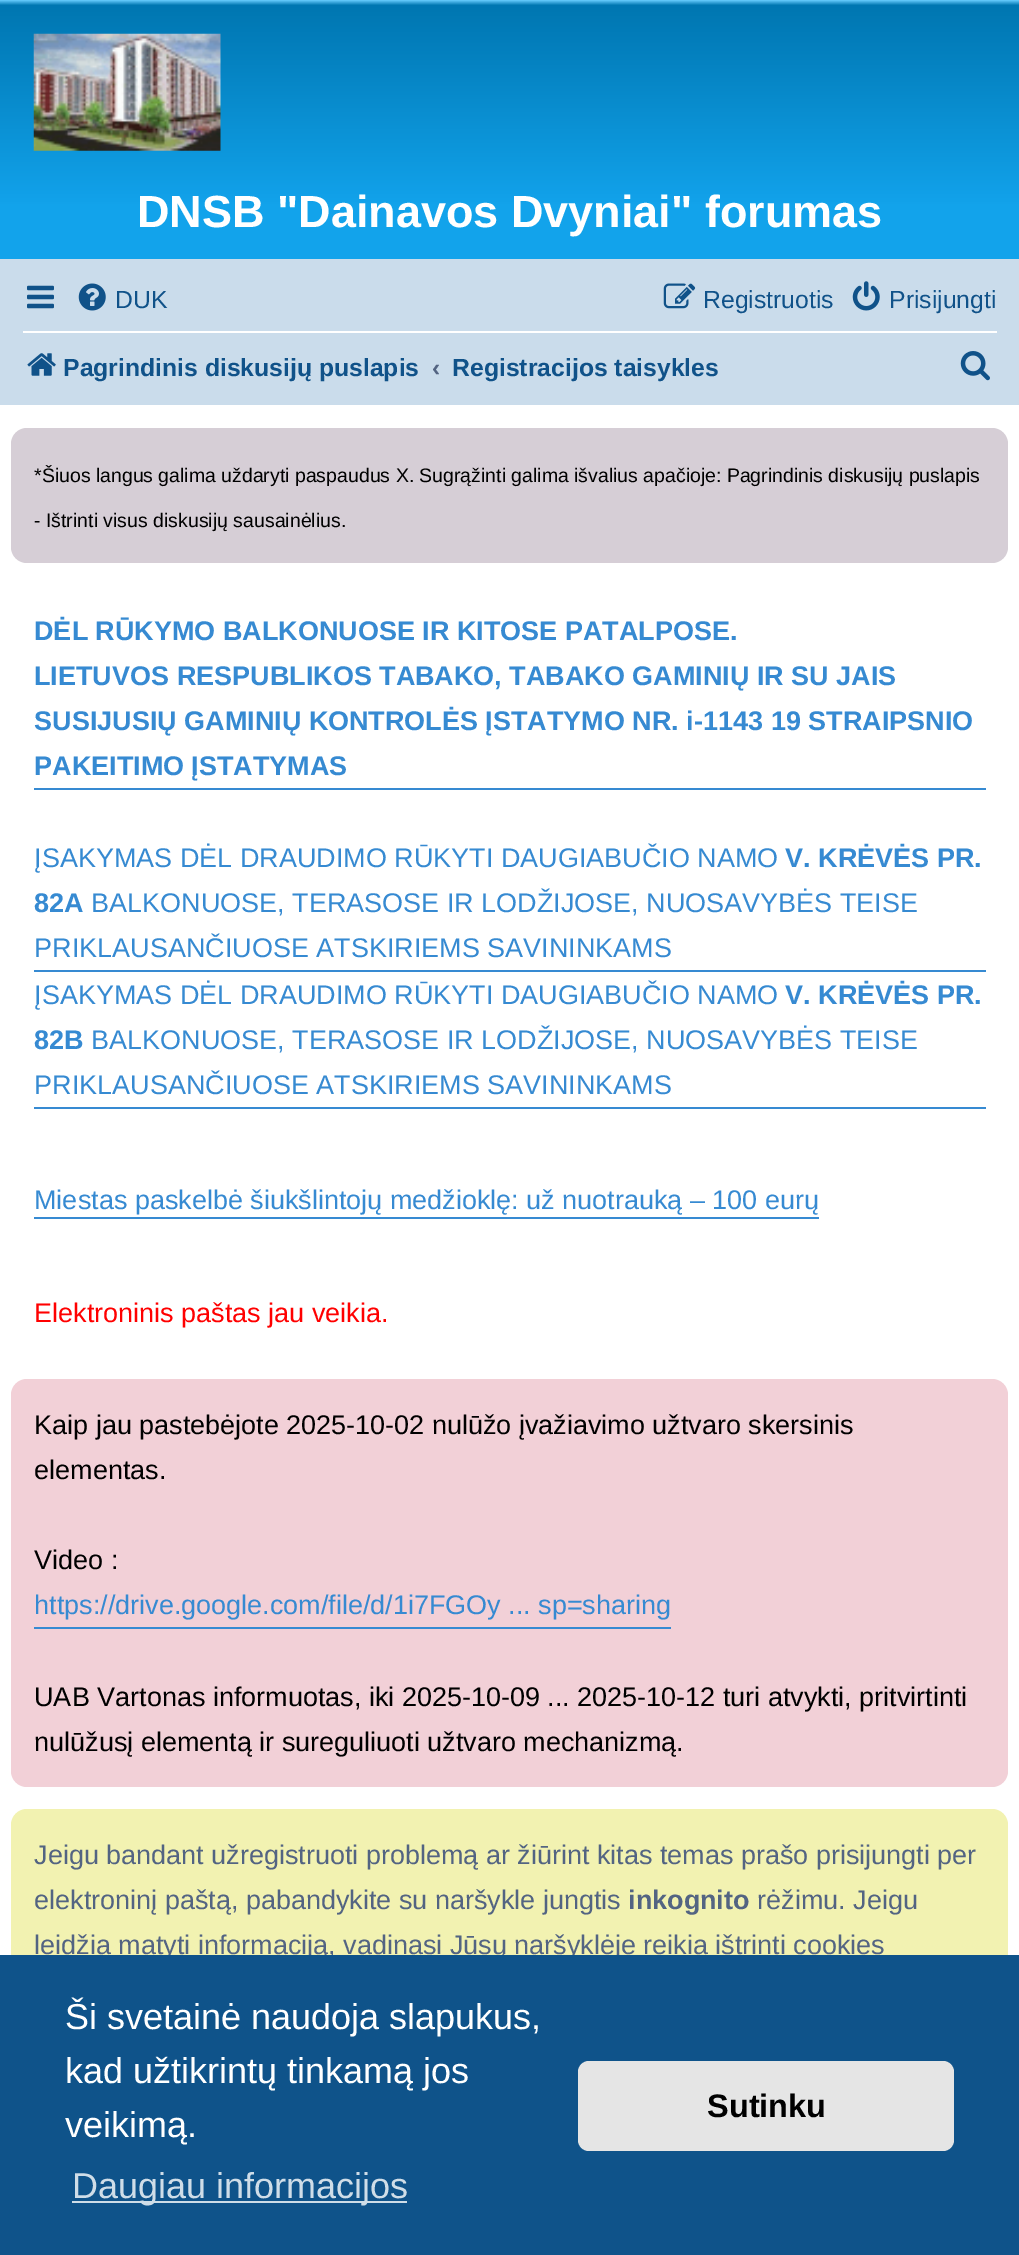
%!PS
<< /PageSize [1019 2255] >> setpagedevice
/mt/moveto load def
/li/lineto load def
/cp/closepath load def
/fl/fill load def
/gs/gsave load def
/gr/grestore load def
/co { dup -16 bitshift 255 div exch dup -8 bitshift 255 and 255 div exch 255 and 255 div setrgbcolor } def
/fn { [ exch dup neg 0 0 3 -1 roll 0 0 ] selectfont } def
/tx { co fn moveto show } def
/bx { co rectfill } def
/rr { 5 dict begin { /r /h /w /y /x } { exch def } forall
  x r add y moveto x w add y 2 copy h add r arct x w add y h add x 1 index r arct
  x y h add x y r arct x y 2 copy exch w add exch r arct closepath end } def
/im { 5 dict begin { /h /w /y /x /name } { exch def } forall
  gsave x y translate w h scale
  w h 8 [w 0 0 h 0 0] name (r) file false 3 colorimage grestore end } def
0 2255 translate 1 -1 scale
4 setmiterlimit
0 0 1019 2255 16#FFFFFF bx
gs 0 0 mt 1019 0 li 1019 259 li 0 259 li cp clip newpath
<< /ShadingType 2 /ColorSpace /DeviceRGB /Coords [510 0 510 261] /Extend [true true] /Function << /FunctionType 3 /Domain [0 1] /Functions [<< /FunctionType 2 /Domain [0 1] /C0 [.416 .808 1] /C1 [0 .463 .694] /N 1 >> << /FunctionType 2 /Domain [0 1] /C0 [0 .463 .694] /C1 [.071 .639 .922] /N 1 >> << /FunctionType 2 /Domain [0 1] /C0 [.071 .639 .922] /C1 [.071 .639 .922] /N 1 >>] /Bounds [.02 .79] /Encode [0 1 0 1 0 1] >> >> shfill gr
(media/1.raw) 33 33 188 118 im
0 259 1019 146 16#CADCEB bx
(media/2.raw) 27 285 27 24 im
(media/3.raw) 78 283 28 28 im
(media/4.raw) 663 283 33 26 im
(media/5.raw) 852 281 28 30 im
23 331 974 2 16#FFFFFF bx
(media/6.raw) 27 353 29 23 im
(media/7.raw) 960 351 30 30 im
16#D6CED6 co
11 428 997 135 16 rr fl
34 788 952 2 16#368AD2 bx
34 970 952 2 16#368AD2 bx
34 1107 952 2 16#368AD2 bx
34 1217 785 2 16#368AD2 bx
16#F2D0D7 co
11 1379 997 408 16 rr fl
34 1627 637 2 16#368AD2 bx
16#F2F2B1 co
11 1809 997 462 16 rr fl
(DNSB "Dainavos Dvyniai" forumas) 137 227 /LiberationSans-Bold 45 16#FFFFFF tx
(DUK) 115 308 /LiberationSans-Regular 24.75 16#105289 tx
(Registruotis) 703 308 /LiberationSans-Regular 24.75 16#105289 tx
(Prisijungti) 889 308 /LiberationSans-Regular 24.75 16#105289 tx
(Pagrindinis diskusijų puslapis) 63 376 /LiberationSans-Bold 24.75 16#105289 tx
(‹) 432 376 /LiberationSans-Bold 24.75 16#536482 tx
(Registracijos taisykles) 452 376 /LiberationSans-Bold 24.75 16#105289 tx
/LiberationSans-Regular 19.5 fn
16#000000 co
34 482 mt -.1 0 32 (*Šiuos langus galima uždaryti paspaudus X. Sugrąžinti galima išvalius apačioje: Pagrindinis diskusijų puslapis) widthshow
(- Ištrinti visus diskusijų sausainėlius.) 34 527 /LiberationSans-Regular 19.5 16#000000 tx
(DĖL RŪKYMO BALKONUOSE IR KITOSE PATALPOSE.) 34 640 /LiberationSans-Bold 27 16#368AD2 tx
(LIETUVOS RESPUBLIKOS TABAKO, TABAKO GAMINIŲ IR SU JAIS) 34 685 /LiberationSans-Bold 27 16#368AD2 tx
(SUSIJUSIŲ GAMINIŲ KONTROLĖS ĮSTATYMO NR. i-1143 19 STRAIPSNIO) 34 730 /LiberationSans-Bold 27 16#368AD2 tx
(PAKEITIMO ĮSTATYMAS) 34 775 /LiberationSans-Bold 27 16#368AD2 tx
(ĮSAKYMAS DĖL DRAUDIMO RŪKYTI DAUGIABUČIO NAMO) 34 867 /LiberationSans-Regular 27 16#368AD2 tx
(V. KRĖVĖS PR.) 785 867 /LiberationSans-Bold 27 16#368AD2 tx
(82A) 34 912 /LiberationSans-Bold 27 16#368AD2 tx
(BALKONUOSE, TERASOSE IR LODŽIJOSE, NUOSAVYBĖS TEISE) 91 912 /LiberationSans-Regular 27 16#368AD2 tx
(PRIKLAUSANČIUOSE ATSKIRIEMS SAVININKAMS) 34 957 /LiberationSans-Regular 27 16#368AD2 tx
(ĮSAKYMAS DĖL DRAUDIMO RŪKYTI DAUGIABUČIO NAMO) 34 1004 /LiberationSans-Regular 27 16#368AD2 tx
(V. KRĖVĖS PR.) 785 1004 /LiberationSans-Bold 27 16#368AD2 tx
(82B) 34 1049 /LiberationSans-Bold 27 16#368AD2 tx
(BALKONUOSE, TERASOSE IR LODŽIJOSE, NUOSAVYBĖS TEISE) 91 1049 /LiberationSans-Regular 27 16#368AD2 tx
(PRIKLAUSANČIUOSE ATSKIRIEMS SAVININKAMS) 34 1094 /LiberationSans-Regular 27 16#368AD2 tx
(Miestas paskelbė šiukšlintojų medžioklę: už nuotrauką – 100 eurų) 34 1209 /LiberationSans-Regular 27 16#368AD2 tx
(Elektroninis paštas jau veikia.) 34 1322 /LiberationSans-Regular 27 16#FF0000 tx
(Kaip jau pastebėjote 2025-10-02 nulūžo įvažiavimo užtvaro skersinis) 34 1434 /LiberationSans-Regular 27 16#000000 tx
(elementas.) 34 1479 /LiberationSans-Regular 27 16#000000 tx
(Video :) 34 1569 /LiberationSans-Regular 27 16#000000 tx
(https://drive.google.com/file/d/1i7FGOy ... sp=sharing) 34 1614 /LiberationSans-Regular 27 16#368AD2 tx
(UAB Vartonas informuotas, iki 2025-10-09 ... 2025-10-12 turi atvykti, pritvirtinti) 34 1706 /LiberationSans-Regular 27 16#000000 tx
(nulūžusį elementą ir sureguliuoti užtvaro mechanizmą.) 34 1751 /LiberationSans-Regular 27 16#000000 tx
(Jeigu bandant užregistruoti problemą ar žiūrint kitas temas prašo prisijungti per) 34 1864 /LiberationSans-Regular 27 16#536482 tx
(elektroninį paštą, pabandykite su naršykle jungtis) 34 1909 /LiberationSans-Regular 27 16#536482 tx
(inkognito) 628 1909 /LiberationSans-Bold 27 16#536482 tx
(rėžimu. Jeigu) 757 1909 /LiberationSans-Regular 27 16#536482 tx
(leidžia matyti informaciją, vadinasi Jūsų naršyklėje reikia ištrinti cookies) 34 1954 /LiberationSans-Regular 27 16#536482 tx
0 1955 1019 300 16#0F538A bx
(Ši svetainė naudoja slapukus,) 65 2029 /LiberationSans-Regular 36 16#FFFFFF tx
(kad užtikrintų tinkamą jos) 65 2083 /LiberationSans-Regular 36 16#FFFFFF tx
(veikimą.) 65 2137 /LiberationSans-Regular 36 16#FFFFFF tx
72 2201 335 2 16#CFDDE8 bx
(Daugiau informacijos) 72 2198 /LiberationSans-Regular 36 16#CFDDE8 tx
16#E5E5E5 co
578 2061 376 90 11 rr fl
(Sutinku) 707 2117 /LiberationSans-Bold 32.5 16#000000 tx
showpage
